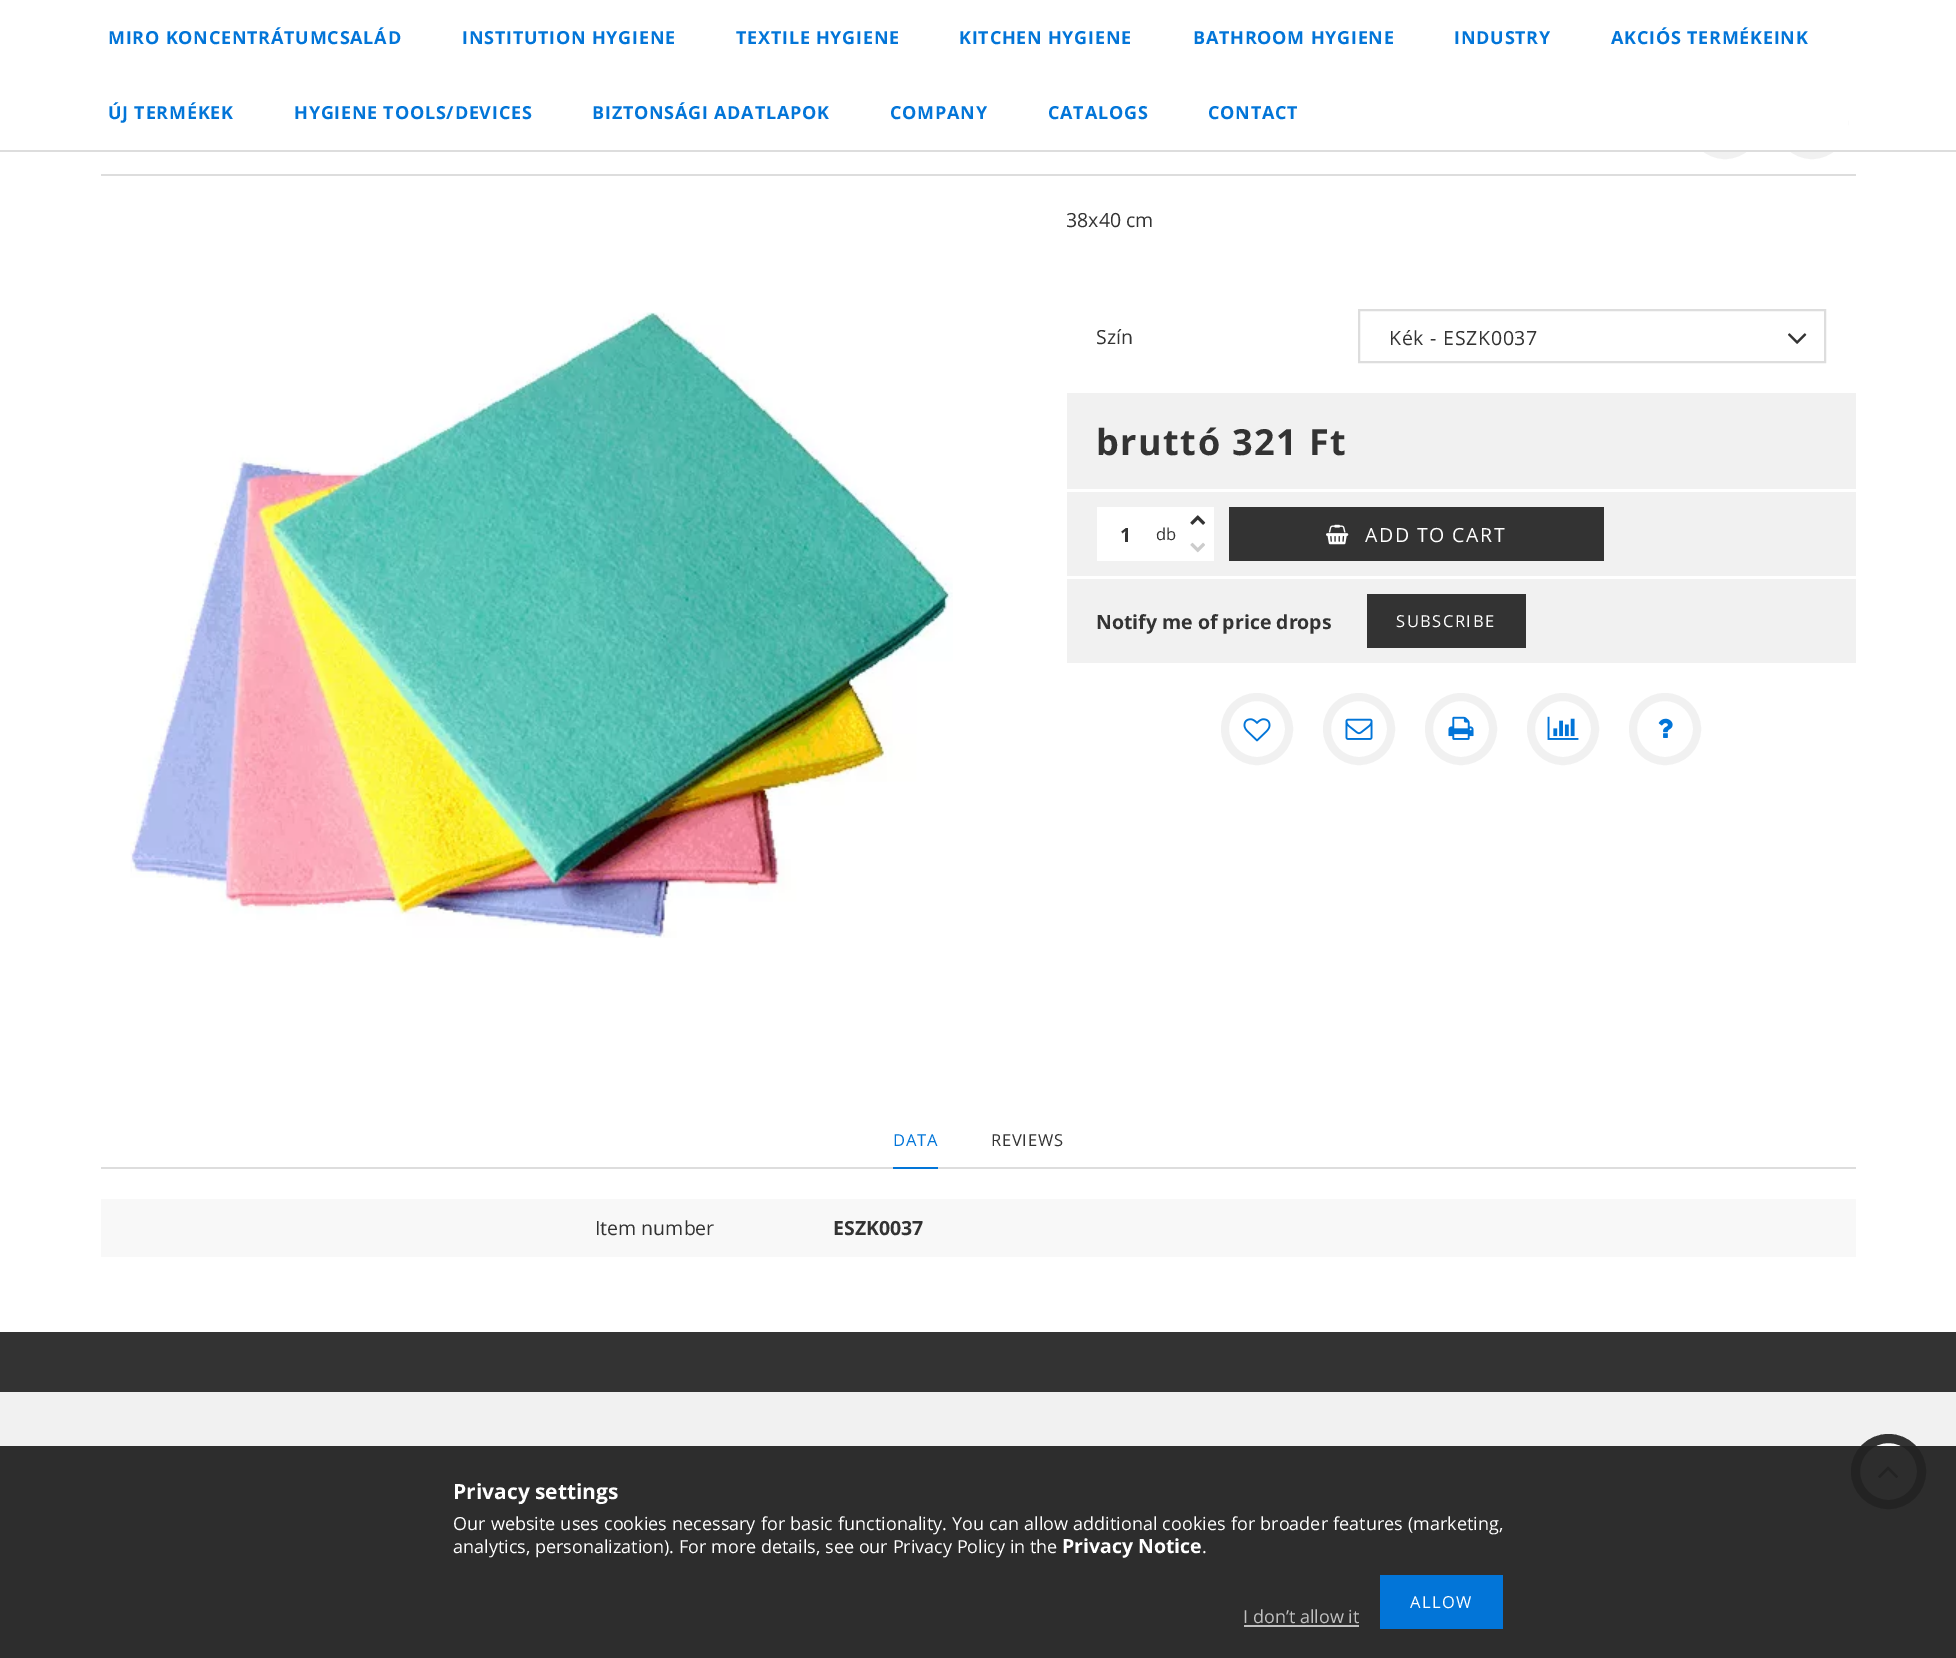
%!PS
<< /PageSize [1956 1658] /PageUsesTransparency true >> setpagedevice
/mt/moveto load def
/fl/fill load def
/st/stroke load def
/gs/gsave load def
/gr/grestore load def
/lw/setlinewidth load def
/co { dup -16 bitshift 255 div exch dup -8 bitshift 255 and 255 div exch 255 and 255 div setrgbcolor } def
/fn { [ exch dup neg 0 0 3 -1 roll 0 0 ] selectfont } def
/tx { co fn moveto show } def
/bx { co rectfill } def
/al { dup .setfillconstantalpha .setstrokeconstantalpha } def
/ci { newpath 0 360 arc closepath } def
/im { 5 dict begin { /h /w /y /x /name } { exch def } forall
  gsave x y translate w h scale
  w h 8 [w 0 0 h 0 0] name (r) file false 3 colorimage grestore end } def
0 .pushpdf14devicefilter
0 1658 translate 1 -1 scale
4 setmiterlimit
0 0 1956 1658 16#FFFFFF bx
16#F1F1F1 co
8 lw
1725 123 32 ci st
1812 123 32 ci st
1689 87 159 63 16#FFFFFF bx
0 150 1956 2 16#DDDDDD bx
101 174 1755 2 16#DDDDDD bx
(media/1.raw) 130 312 823 626 im
2 lw
1359 310 466 52 rectstroke
(media/2.raw) 1788 333 19 11 im
1067 393 789 96 16#F1F1F1 bx
1067 492 789 84 16#F1F1F1 bx
1097 507 87 54 16#FFFFFF bx
1184 507 30 54 16#FFFFFF bx
(media/3.raw) 1190 515 16 10 im
(media/4.raw) 1190 542 15 11 im
1229 507 375 54 16#333333 bx
(media/5.raw) 1326 524 23 21 im
1067 579 789 84 16#F1F1F1 bx
1367 594 159 54 16#333333 bx
16#F1F1F1 co
8 lw
1257 729 32 ci st
(media/6.raw) 1243 718 28 24 im
1359 729 32 ci st
(media/7.raw) 1345 718 28 22 im
1461 729 32 ci st
(media/8.raw) 1448 716 26 24 im
1563 729 32 ci st
(media/9.raw) 1547 716 32 24 im
1665 729 32 ci st
(media/10.raw) 1658 718 15 20 im
101 1167 1755 2 16#DDDDDD bx
893 1167 45 2 16#0275D8 bx
101 1199 1755 58 16#F8F8F8 bx
0 1332 1956 60 16#333333 bx
0 1392 1956 266 16#F1F1F1 bx
16#FCFCFC co
1888.5 1471.5 33 ci gs fl gr
16#333333 co
9 lw
st
(media/11.raw) 1878 1466 21 12 im
0.95 al
0 1446 1956 212 16#222222 bx
1 al
1380 1575 123 54 16#0275D8 bx
1244 1625 115 2 16#C0C0C0 bx
/OpenSans-Bold 18 fn
16#0275D8 co
108 44 mt .75 0 (MIRO KONCENTRÁTUMCSALÁD) ashow
462 44 mt .75 0 (INSTITUTION HYGIENE) ashow
736 44 mt .75 0 (TEXTILE HYGIENE) ashow
959 44 mt .75 0 (KITCHEN HYGIENE) ashow
1193 44 mt .75 0 (BATHROOM HYGIENE) ashow
1454 44 mt .75 0 (INDUSTRY) ashow
1611 44 mt .75 0 (AKCIÓS TERMÉKEINK) ashow
108 119 mt .75 0 (ÚJ TERMÉKEK) ashow
294 119 mt .75 0 (HYGIENE TOOLS/DEVICES) ashow
592 119 mt .75 0 (BIZTONSÁGI ADATLAPOK) ashow
890 119 mt .75 0 (COMPANY) ashow
1048 119 mt .75 0 (CATALOGS) ashow
1208 119 mt .75 0 (CONTACT) ashow
gs
1067 206 789 27 rectclip
(38x40 cm) 1066 227 /OpenSans-Regular 19.5 16#333333 tx
gr
(Szín) 1096 344 /OpenSans-Regular 19.5 16#333333 tx
1389 345 mt .75 0 (Kék - ESZK0037) ashow
/OpenSans-Bold 36 fn
1096 455 mt 1.5 0 (bruttó 321 Ft) ashow
(1) 1120 542 /OpenSans-Bold 19.5 16#333333 tx
(db) 1156 540 /OpenSans-Regular 16.5 16#333333 tx
/OpenSans-Regular 19.5 fn
16#FFFFFF co
1365 542 mt 1.5 0 (ADD TO CART) ashow
(Notify me of price drops) 1096 629 /OpenSans-Bold 19.5 16#333333 tx
/OpenSans-Regular 16.5 fn
16#FFFFFF co
1396 627 mt 1.5 0 (SUBSCRIBE) ashow
16#0275D8 co
893 1146 mt .75 0 (DATA) ashow
16#333333 co
991 1146 mt .75 0 (REVIEWS) ashow
(Item number) 595 1235 /OpenSans-Regular 19.5 16#333333 tx
(ESZK0037) 833 1235 /OpenSans-Bold 19.5 16#333333 tx
(Privacy settings) 453 1499 /OpenSans-Bold 21 16#FFFFFF tx
/OpenSans-Regular 18 fn
453 1530 mt .5 0 32 (Our website uses cookies necessary for basic functionality. You can allow additional cookies for broader features \(marketing,) widthshow
(analytics, personalization\). For more details, see our Privacy Policy in the) 453 1553 /OpenSans-Regular 18 16#FFFFFF tx
(Privacy Notice) 1062 1553 /OpenSans-Bold 19.5 16#FFFFFF tx
(.) 1202 1553 /OpenSans-Regular 18 16#FFFFFF tx
/OpenSans-Regular 16.5 fn
1410 1608 mt 1.5 0 (ALLOW) ashow
(I don’t allow it) 1243 1623 /OpenSans-Regular 18 16#C0C0C0 tx
.poppdf14devicefilter showpage
